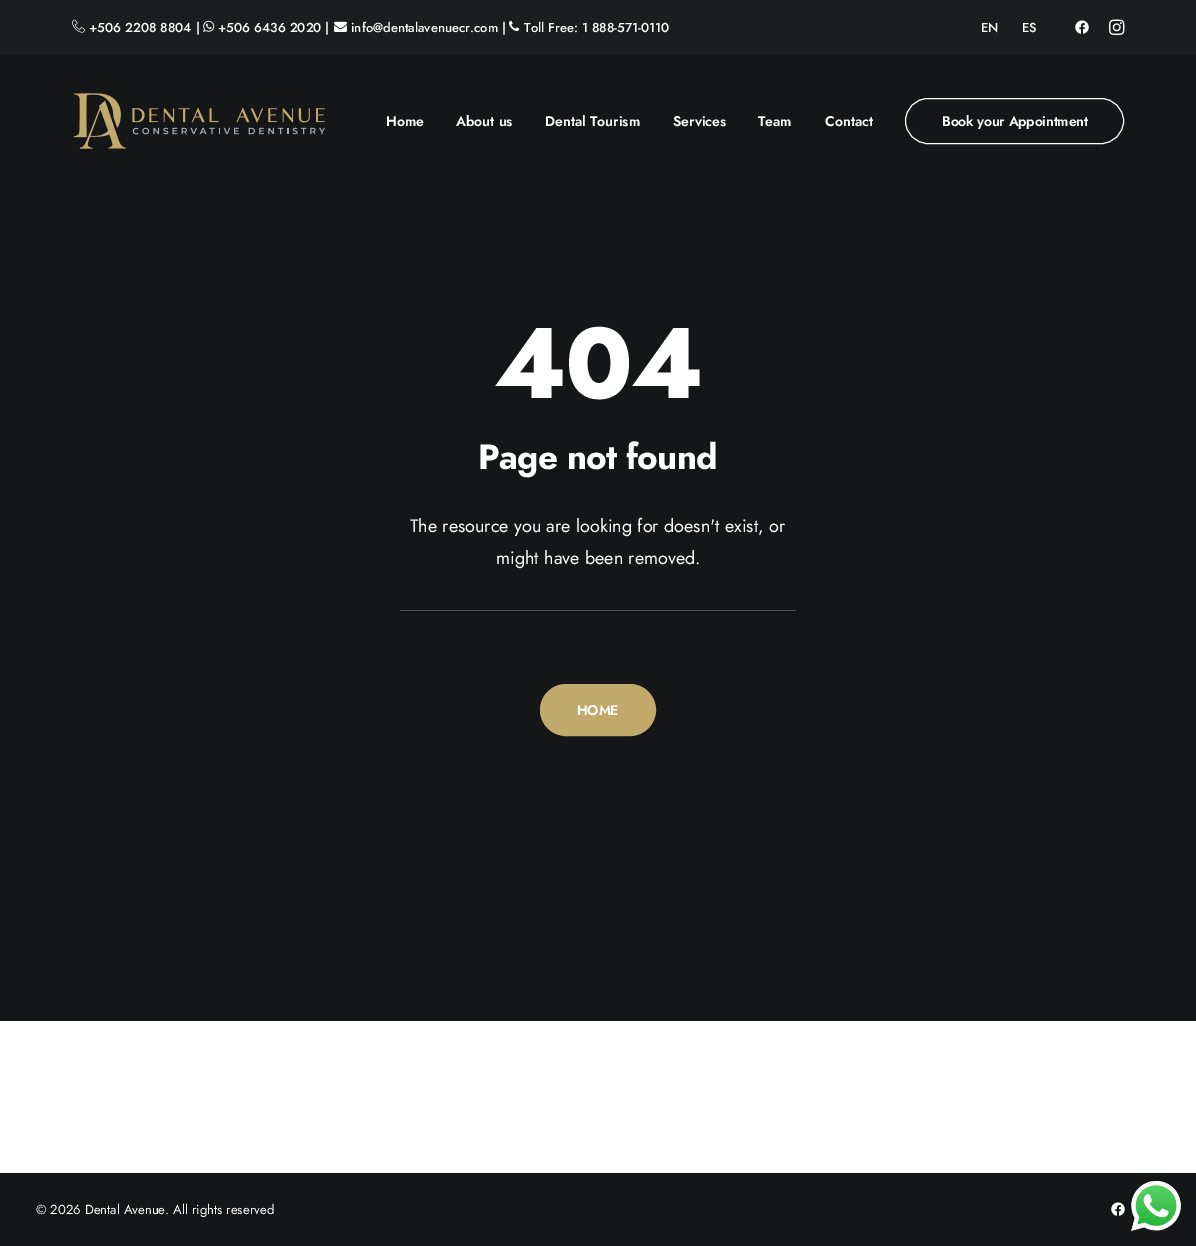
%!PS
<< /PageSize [1196 1246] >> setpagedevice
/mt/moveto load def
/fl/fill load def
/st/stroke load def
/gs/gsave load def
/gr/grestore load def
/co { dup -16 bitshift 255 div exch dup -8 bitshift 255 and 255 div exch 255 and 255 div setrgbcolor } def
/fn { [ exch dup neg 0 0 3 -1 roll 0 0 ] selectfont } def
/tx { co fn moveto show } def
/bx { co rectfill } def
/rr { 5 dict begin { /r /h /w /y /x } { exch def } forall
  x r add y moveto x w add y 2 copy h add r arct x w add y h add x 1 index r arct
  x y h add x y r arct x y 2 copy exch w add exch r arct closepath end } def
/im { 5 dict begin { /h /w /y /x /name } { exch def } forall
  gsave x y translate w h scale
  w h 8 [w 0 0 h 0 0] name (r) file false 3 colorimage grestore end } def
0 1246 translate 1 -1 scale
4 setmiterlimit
0 0 1196 1246 16#141618 bx
0 0 1196 55 16#1B1D1F bx
(media/1.raw) 72 19 13 14 im
(media/2.raw) 203 20 12 12 im
(media/3.raw) 334 21 13 11 im
(media/4.raw) 509 20 11 12 im
(media/5.raw) 1075 20 14 14 im
(media/6.raw) 1109 19 16 16 im
(media/7.raw) 73 93 252 56 im
16#FFFFFF co
905.5 98.5 218 45 22.5 rr st
400 610 396 1 16#4F5052 bx
16#C1A96C co
540.5 684.5 115 51 25.5 rr gs fl gr
st
0 1021 1196 152 16#FFFFFF bx
(media/8.raw) 1111 1202 14 14 im
(media/9.raw) 1131 1181 50 50 im
(+506 2208 8804 |) 89 32 /Jost-Medium 13 16#FFFFFF tx
(+506 6436 2020 |) 218 32 /Jost-Medium 13 16#FFFFFF tx
(info@dentalavenuecr.com |) 351 32 /Jost-Medium 13 16#FFFFFF tx
(Toll Free: 1 888-571-0110) 524 32 /Jost-Medium 13 16#FFFFFF tx
(EN) 981 32 /Jost-Medium 13 16#FFFFFF tx
(ES) 1022 32 /Jost-Medium 13 16#FFFFFF tx
(Home) 386 126 /Jost-SemiBold 14 16#FFFFFF tx
(About us) 456 126 /Jost-SemiBold 14 16#FFFFFF tx
(Dental Tourism) 545 126 /Jost-SemiBold 14 16#FFFFFF tx
(Services) 673 126 /Jost-SemiBold 14 16#FFFFFF tx
(Team) 758 126 /Jost-SemiBold 14 16#FFFFFF tx
(Contact) 825 126 /Jost-SemiBold 14 16#FFFFFF tx
942 126 mt -.25 0 (Book your Appointment) ashow
/Jost-ExtraBold 100 fn
494 398 mt -2 0 (404) ashow
/Jost-Bold 35 fn
478 469 mt -.75 0 (Page not found) ashow
(The resource you are looking for doesn't exist, or) 410 532 /Jost-Regular 18 16#FFFFFF tx
(might have been removed.) 496 564 /Jost-Regular 18 16#FFFFFF tx
/Jost-SemiBold 14 fn
577 715 mt -.25 0 (HOME) ashow
(© 2026 Dental Avenue. All rights reserved) 36 1214 /Jost-Regular 13.1 16#FFFFFF tx
showpage
